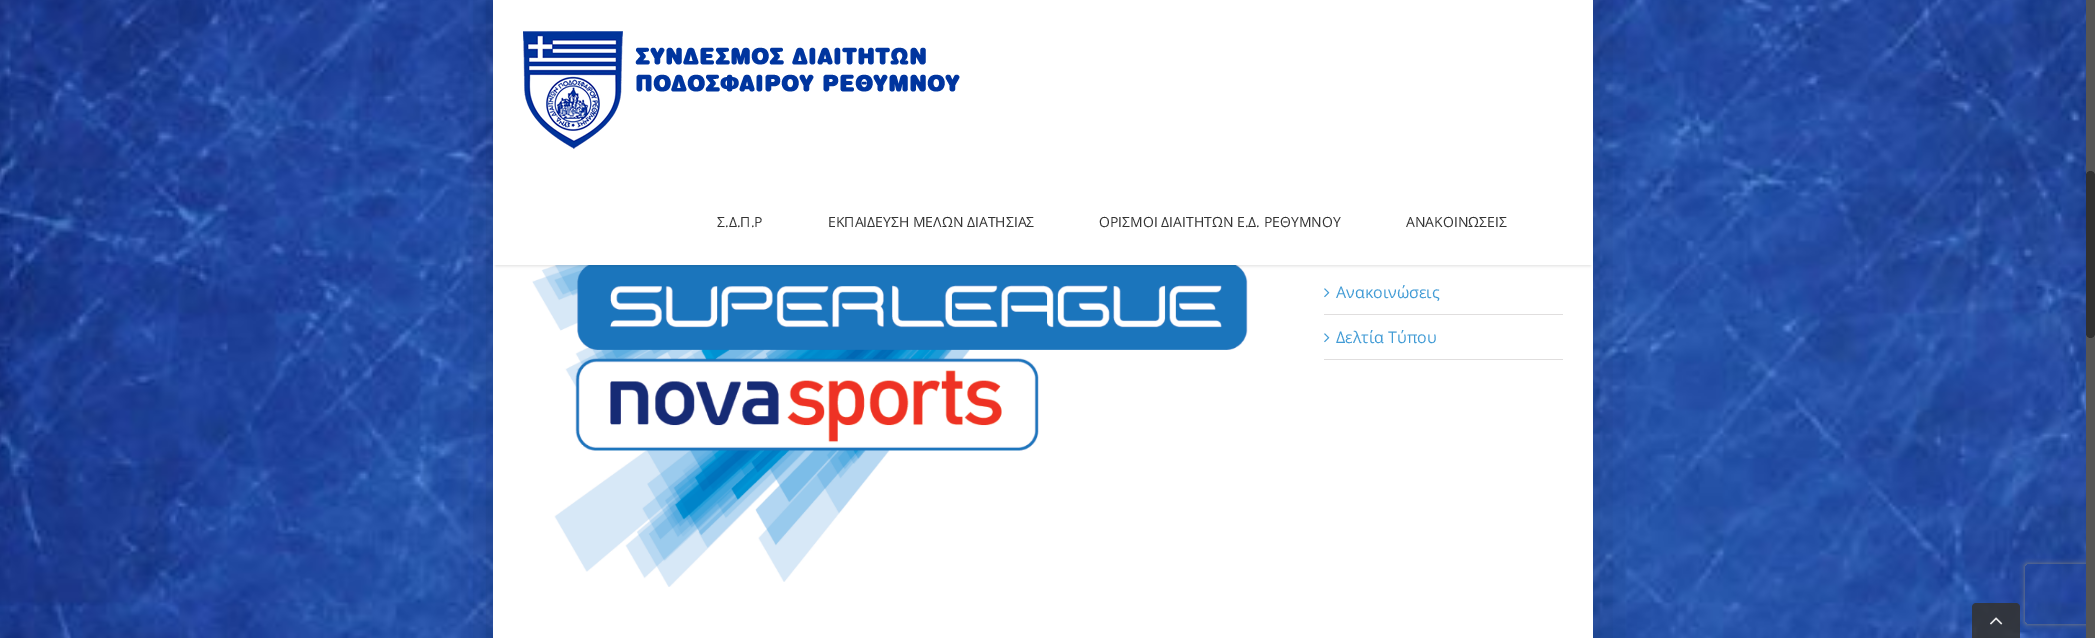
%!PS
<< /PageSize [2095 638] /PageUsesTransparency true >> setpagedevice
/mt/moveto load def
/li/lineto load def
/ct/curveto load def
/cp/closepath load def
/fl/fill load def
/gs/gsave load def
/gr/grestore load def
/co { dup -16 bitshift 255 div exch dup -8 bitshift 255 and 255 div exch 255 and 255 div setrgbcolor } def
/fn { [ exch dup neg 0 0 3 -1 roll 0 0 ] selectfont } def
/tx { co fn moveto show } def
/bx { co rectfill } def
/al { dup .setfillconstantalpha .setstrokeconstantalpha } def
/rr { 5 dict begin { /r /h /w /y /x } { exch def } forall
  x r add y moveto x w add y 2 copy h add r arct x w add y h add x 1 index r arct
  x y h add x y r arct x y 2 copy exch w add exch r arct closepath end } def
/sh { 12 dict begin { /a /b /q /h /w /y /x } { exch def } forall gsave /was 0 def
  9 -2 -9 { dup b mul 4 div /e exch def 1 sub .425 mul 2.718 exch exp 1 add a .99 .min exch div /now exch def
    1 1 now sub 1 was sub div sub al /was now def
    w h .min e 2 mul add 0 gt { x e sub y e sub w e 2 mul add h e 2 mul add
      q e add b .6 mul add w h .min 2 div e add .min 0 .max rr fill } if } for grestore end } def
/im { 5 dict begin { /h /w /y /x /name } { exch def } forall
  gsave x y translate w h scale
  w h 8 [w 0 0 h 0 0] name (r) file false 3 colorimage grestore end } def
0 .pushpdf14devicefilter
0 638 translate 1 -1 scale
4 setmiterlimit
0 0 2095 638 16#FFFFFF bx
(media/1.raw) 0 0 2086 638 im
16#000000 co
492 -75 1102 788 0 25 .22 sh
493 265 1100 373 16#FFFFFF bx
(media/3.raw) 532 265 716 322 im
16#000000 co
496 7 1094 259 0 1.5 .12 sh
493 0 1100 265 16#FFFFFF bx
(media/2.raw) 523 31 437 118 im
1324 314 239 1 16#E0DEDE bx
(media/4.raw) 1324 288 6 10 im
1324 359 239 1 16#E0DEDE bx
(media/4.raw) 1324 333 6 10 im
gs
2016 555 mt 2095 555 li 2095 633 li 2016 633 li cp 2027 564 mt 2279 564 li 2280 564 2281 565 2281 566 ct 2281 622 li 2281 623 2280 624 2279 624 ct 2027 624 li 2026 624 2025 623 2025 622 ct 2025 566 li 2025 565 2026 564 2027 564 ct cp eoclip newpath
16#808080 co
2025 564 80 60 2 2.5 1 sh
gr
2086 0 9 638 16#555555 bx
16#303030 co
2086 171 9 167 4.5 rr fl
0.9 al
16#333333 co
1976 603 mt 2016 603 li 2018 603 2020 605 2020 607 ct 2020 638 li 1972 638 li 1972 607 li 1972 605 1974 603 1976 603 ct cp fl
1 al
(media/5.raw) 1990 617 13 8 im
(Σ.Δ.Π.Ρ) 717 227 /OpenSans-Regular 14 16#333333 tx
(ΕΚΠΑΙΔΕΥΣΗ ΜΕΛΩΝ ΔΙΑΤΗΣΙΑΣ) 828 227 /OpenSans-Regular 14 16#333333 tx
(ΟΡΙΣΜΟΙ ΔΙΑΙΤΗΤΩΝ Ε.Δ. ΡΕΘΥΜΝΟΥ) 1099 227 /OpenSans-Regular 14 16#333333 tx
(ΑΝΑΚΟΙΝΩΣΕΙΣ) 1406 227 /OpenSans-Regular 14 16#333333 tx
(Ανακοινώσεις) 1336 298 /OpenSans-Regular 16 16#419BD5 tx
(Δελτία Τύπου) 1336 343 /OpenSans-Regular 16 16#419BD5 tx
.poppdf14devicefilter showpage
